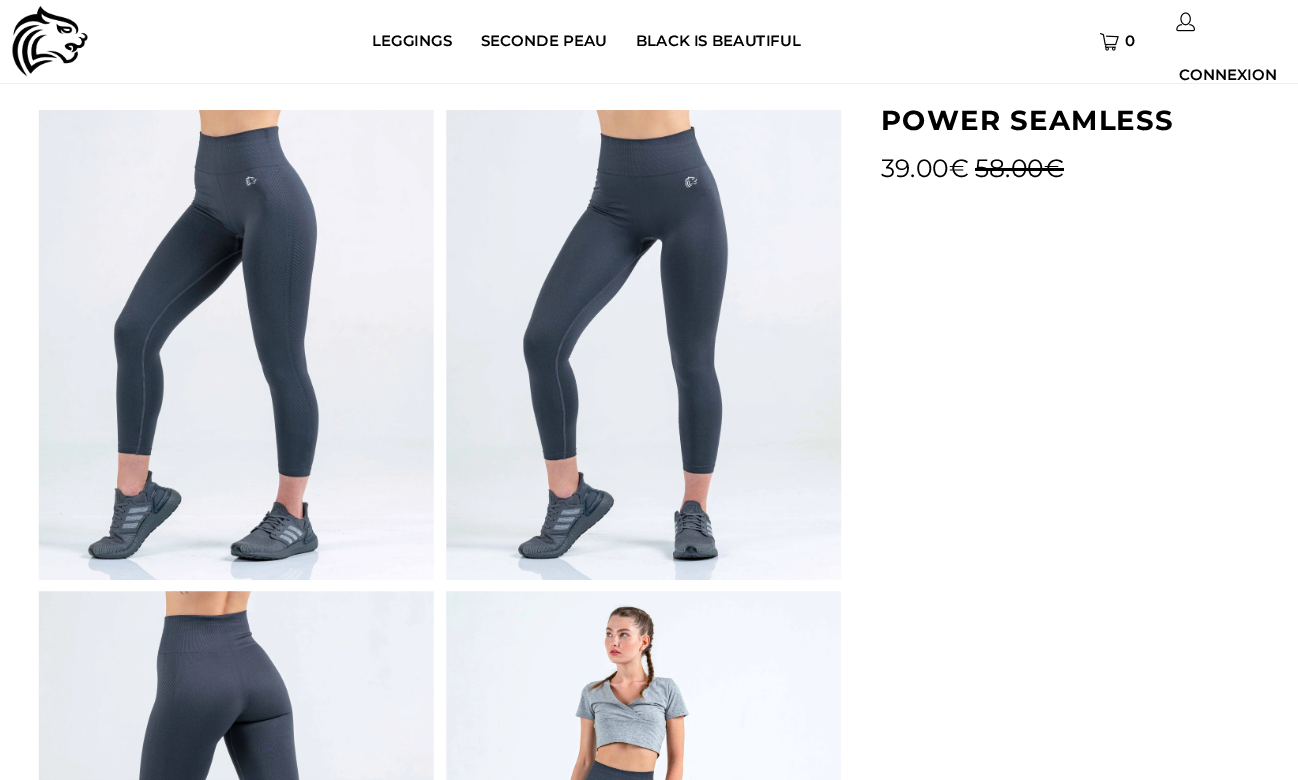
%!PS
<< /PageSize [1298 780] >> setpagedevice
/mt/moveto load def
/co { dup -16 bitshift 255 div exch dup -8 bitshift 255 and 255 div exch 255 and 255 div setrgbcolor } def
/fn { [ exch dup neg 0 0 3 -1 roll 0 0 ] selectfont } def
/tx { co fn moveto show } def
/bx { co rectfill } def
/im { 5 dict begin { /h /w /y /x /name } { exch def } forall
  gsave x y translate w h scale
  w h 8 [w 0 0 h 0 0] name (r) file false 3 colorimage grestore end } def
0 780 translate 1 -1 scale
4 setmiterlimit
0 0 1298 780 16#FFFFFF bx
0 83 1298 1 16#F0F0F0 bx
(media/1.raw) 12 6 76 71 im
(media/2.raw) 1100 33 19 18 im
(media/3.raw) 1176 12 19 20 im
(media/4.raw) 38 110 396 470 im
(media/5.raw) 446 110 396 470 im
(media/6.raw) 38 591 396 189 im
(media/7.raw) 446 591 395 189 im
975 168 89 3 16#000000 bx
(LEGGINGS) 372 46 /Montserrat-SemiBold 15 16#000000 tx
(SECONDE PEAU) 481 46 /Montserrat-SemiBold 15 16#000000 tx
(BLACK IS BEAUTIFUL) 636 46 /Montserrat-SemiBold 15 16#000000 tx
(0) 1125 46 /Montserrat-SemiBold 15 16#000000 tx
(CONNEXION) 1179 80 /Montserrat-SemiBold 15 16#000000 tx
/Montserrat-Bold 27.5 fn
881 130 mt 1.25 0 (POWER SEAMLESS) ashow
(39.00€ 58.00€) 881 177 /Montserrat-Regular 25 16#000000 tx
showpage
